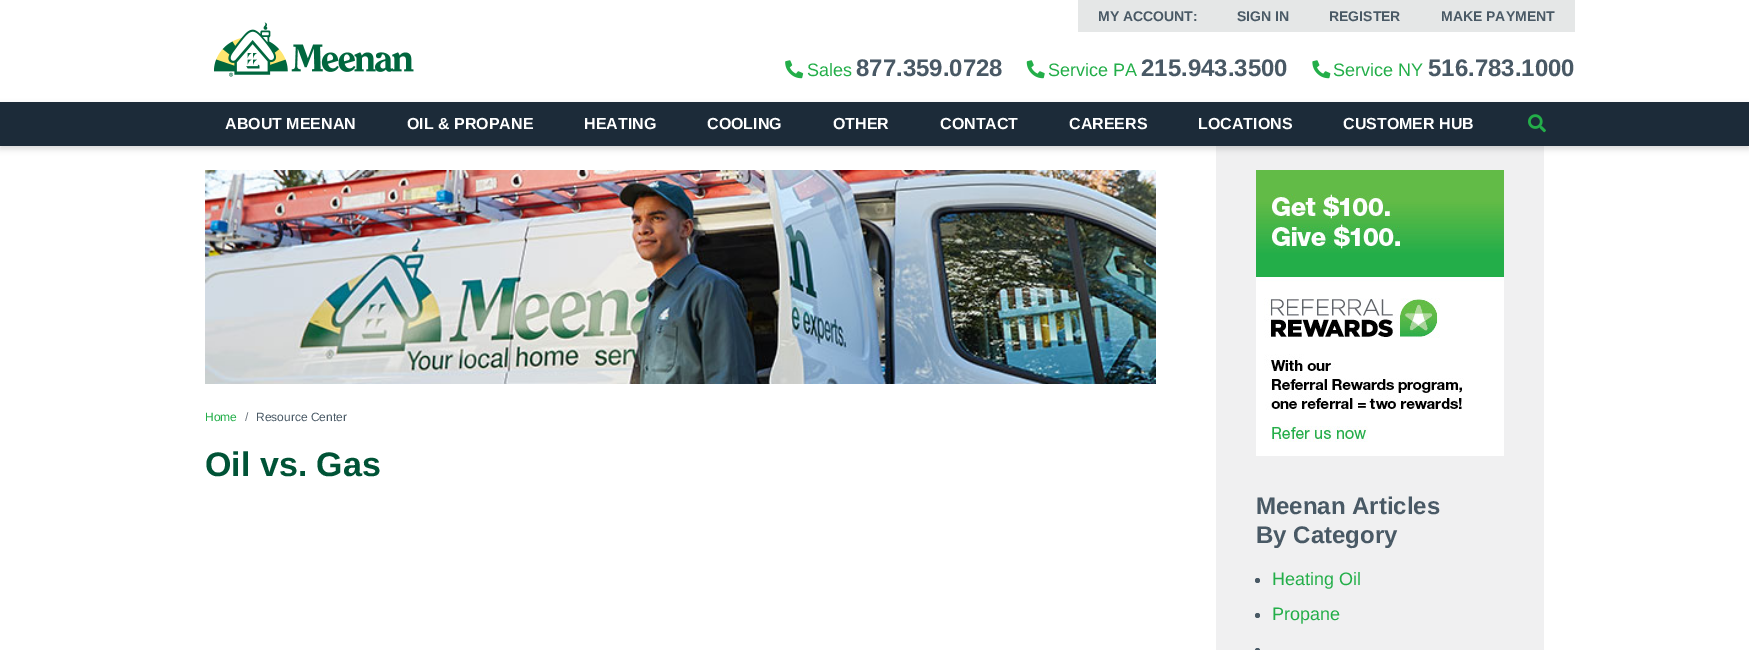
%!PS
<< /PageSize [1749 650] /PageUsesTransparency true >> setpagedevice
/fl/fill load def
/co { dup -16 bitshift 255 div exch dup -8 bitshift 255 and 255 div exch 255 and 255 div setrgbcolor } def
/fn { [ exch dup neg 0 0 3 -1 roll 0 0 ] selectfont } def
/tx { co fn moveto show } def
/bx { co rectfill } def
/al { dup .setfillconstantalpha .setstrokeconstantalpha } def
/ci { newpath 0 360 arc closepath } def
/rr { 5 dict begin { /r /h /w /y /x } { exch def } forall
  x r add y moveto x w add y 2 copy h add r arct x w add y h add x 1 index r arct
  x y h add x y r arct x y 2 copy exch w add exch r arct closepath end } def
/sh { 12 dict begin { /a /b /q /h /w /y /x } { exch def } forall gsave /was 0 def
  9 -2 -9 { dup b mul 4 div /e exch def 1 sub .425 mul 2.718 exch exp 1 add a .99 .min exch div /now exch def
    1 1 now sub 1 was sub div sub al /was now def
    w h .min e 2 mul add 0 gt { x e sub y e sub w e 2 mul add h e 2 mul add
      q e add b .6 mul add w h .min 2 div e add .min 0 .max rr fill } if } for grestore end } def
/im { 5 dict begin { /h /w /y /x /name } { exch def } forall
  gsave x y translate w h scale
  w h 8 [w 0 0 h 0 0] name (r) file false 3 colorimage grestore end } def
0 .pushpdf14devicefilter
0 650 translate 1 -1 scale
4 setmiterlimit
0 0 1749 650 16#FFFFFF bx
(media/1.raw) 214 22 200 55 im
1078 0 497 32 16#E5E7E7 bx
(media/2.raw) 785 60 19 19 im
(media/3.raw) 1026 60 19 19 im
(media/4.raw) 1312 60 19 19 im
1216 146 328 504 16#F0F0F1 bx
16#000000 co
0 105 1749 44 0 3 .15 sh
0 102 1749 44 16#1C2B39 bx
(media/5.raw) 1528 114 18 19 im
(media/6.raw) 205 170 951 214 im
(media/7.raw) 1256 170 248 286 im
16#495965 co
1257.5 580.5 2.5 ci fl
1257.5 615.5 2.5 ci fl
1257.5 650.5 2.5 ci fl
(MY ACCOUNT:) 1098 21 /LiberationSans-Bold 14 16#495965 tx
(SIGN IN) 1237 21 /LiberationSans-Bold 14 16#495965 tx
(REGISTER) 1329 21 /LiberationSans-Bold 14 16#495965 tx
(MAKE PAYMENT) 1441 21 /LiberationSans-Bold 14 16#495965 tx
(Sales) 807 76 /LiberationSans-Regular 18 16#23AE49 tx
(877.359.0728) 856 76 /LiberationSans-Bold 24 16#495965 tx
(Service PA) 1048 76 /LiberationSans-Regular 18 16#23AE49 tx
(215.943.3500) 1141 76 /LiberationSans-Bold 24 16#495965 tx
(Service NY) 1333 76 /LiberationSans-Regular 18 16#23AE49 tx
(516.783.1000) 1428 76 /LiberationSans-Bold 24 16#495965 tx
(ABOUT MEENAN) 225 129 /LiberationSans-Bold 16 16#FFFFFF tx
(OIL & PROPANE) 407 129 /LiberationSans-Bold 16 16#FFFFFF tx
(HEATING) 584 129 /LiberationSans-Bold 16 16#FFFFFF tx
(COOLING) 707 129 /LiberationSans-Bold 16 16#FFFFFF tx
(OTHER) 833 129 /LiberationSans-Bold 16 16#FFFFFF tx
(CONTACT) 940 129 /LiberationSans-Bold 16 16#FFFFFF tx
(CAREERS) 1069 129 /LiberationSans-Bold 16 16#FFFFFF tx
(LOCATIONS) 1198 129 /LiberationSans-Bold 16 16#FFFFFF tx
(CUSTOMER HUB) 1343 129 /LiberationSans-Bold 16 16#FFFFFF tx
(Home) 205 421 /LiberationSans-Regular 12 16#23AE49 tx
(/) 245 421 /LiberationSans-Regular 12 16#6C757D tx
(Resource Center) 256 421 /LiberationSans-Regular 12 16#495965 tx
(Oil vs. Gas) 205 476 /LiberationSans-Bold 34 16#005336 tx
(Meenan Articles) 1256 514 /LiberationSans-Bold 24 16#495965 tx
(By Category) 1256 543 /LiberationSans-Bold 24 16#495965 tx
(Heating Oil) 1272 585 /LiberationSans-Regular 18 16#23AE49 tx
(Propane) 1272 620 /LiberationSans-Regular 18 16#23AE49 tx
.poppdf14devicefilter showpage
